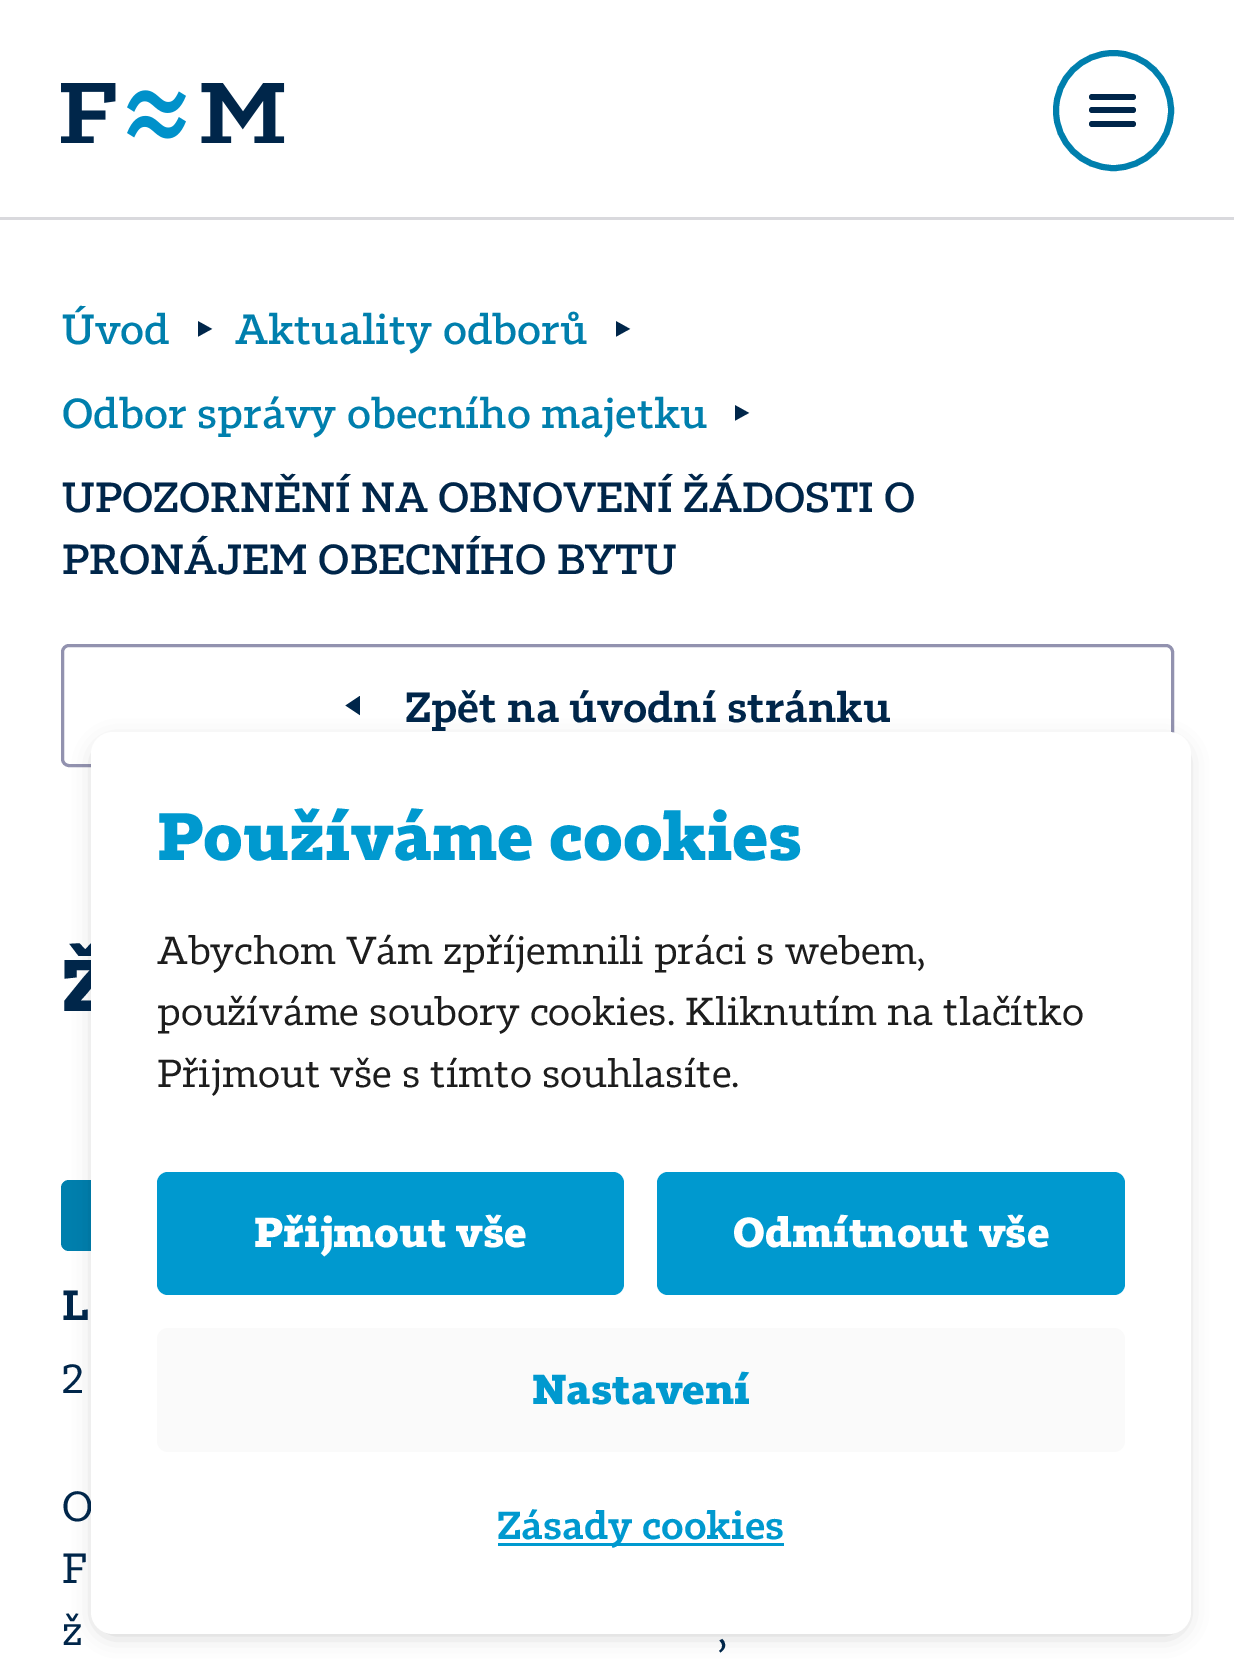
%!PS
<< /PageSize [1234 1677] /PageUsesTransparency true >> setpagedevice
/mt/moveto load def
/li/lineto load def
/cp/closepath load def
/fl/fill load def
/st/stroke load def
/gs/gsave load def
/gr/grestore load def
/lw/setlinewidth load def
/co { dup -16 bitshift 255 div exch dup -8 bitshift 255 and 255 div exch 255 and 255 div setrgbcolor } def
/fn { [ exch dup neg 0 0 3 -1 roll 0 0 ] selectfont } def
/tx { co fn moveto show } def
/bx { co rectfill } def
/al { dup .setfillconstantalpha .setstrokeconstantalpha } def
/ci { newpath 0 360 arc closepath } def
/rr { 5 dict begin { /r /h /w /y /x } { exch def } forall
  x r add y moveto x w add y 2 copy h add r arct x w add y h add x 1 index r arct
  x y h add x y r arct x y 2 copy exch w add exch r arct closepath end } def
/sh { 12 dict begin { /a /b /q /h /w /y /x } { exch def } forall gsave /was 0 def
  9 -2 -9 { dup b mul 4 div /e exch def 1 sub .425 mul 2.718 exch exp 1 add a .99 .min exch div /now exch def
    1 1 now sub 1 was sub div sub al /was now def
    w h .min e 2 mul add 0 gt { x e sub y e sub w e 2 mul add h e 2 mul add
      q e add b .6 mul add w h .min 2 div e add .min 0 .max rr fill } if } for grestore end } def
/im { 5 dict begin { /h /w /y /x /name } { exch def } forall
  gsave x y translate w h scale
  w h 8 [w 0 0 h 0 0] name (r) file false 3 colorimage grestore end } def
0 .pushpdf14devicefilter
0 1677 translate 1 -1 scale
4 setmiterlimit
0 0 1234 1677 16#FFFFFF bx
(media/1.raw) 61 83 224 60 im
16#007FAD co
6 lw
1113.5 110.5 57.5 ci st
16#00264A co
1089 94 47 6 3 rr fl
1089 107 47 6 3 rr fl
1089 121 47 6 3 rr fl
0 217 1234 3 16#D9D9DD bx
16#9292AF co
3 lw
62.5 645.5 1110 120 6.5 rr st
gs
344 696 16 22 rectclip
16#00264A co
345.5 705.5 mt 362 694.5 li 362 716.5 li cp fl
gr
16#007FAD co
61 1180 200 71 8 rr fl
16#000000 co
96 743 1089 891 17 11 .2 sh
(Úvod) 62 344 /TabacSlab-Medium 41.4 16#007FAD tx
(▶) 196 336 /TabacSlab-Medium 20 16#00264A tx
(Aktuality odborů) 235 344 /TabacSlab-Medium 41.4 16#007FAD tx
(▶) 614 336 /TabacSlab-Medium 20 16#00264A tx
(Odbor správy obecního majetku) 62 428 /TabacSlab-Medium 41.4 16#007FAD tx
(▶) 733 420 /TabacSlab-Medium 20 16#00264A tx
(UPOZORNĚNÍ NA OBNOVENÍ ŽÁDOSTI O) 62 512 /TabacSlab-Medium 41.4 16#00264A tx
(PRONÁJEM OBECNÍHO BYTU) 62 574 /TabacSlab-Medium 41.4 16#00264A tx
(Zpět na úvodní stránku) 405 722 /TabacSlab-SemiBold 41.4 16#00264A tx
(Ž) 62 1011 /TabacSlab-Bold 72 16#00264A tx
(L) 62 1320 /TabacSlab-SemiBold 41.4 16#00264A tx
(2) 62 1393 /TabacSlab-Regular 41.4 16#00264A tx
(O) 62 1521 /TabacSlab-Regular 41.4 16#00264A tx
(F) 62 1583 /TabacSlab-Regular 41.4 16#00264A tx
(ž) 62 1645 /TabacSlab-Regular 41.4 16#00264A tx
(,) 718 1645 /TabacSlab-Regular 41.4 16#00264A tx
16#FFFFFF co
91 732 1100 902 22 rr fl
(Používáme cookies) 157 860 /TabacSlab-Bold 66 16#0099CF tx
(Abychom Vám zpříjemnili práci s webem,) 157 964 /TabacSlab-Regular 38.5 16#1D1D1D tx
(používáme soubory cookies. Kliknutím na tlačítko) 157 1025 /TabacSlab-Regular 38.5 16#1D1D1D tx
(Přijmout vše s tímto souhlasíte.) 157 1087 /TabacSlab-Regular 38.5 16#1D1D1D tx
16#0099CF co
157 1172 467 123 11 rr fl
(Přijmout vše) 254 1247 /TabacSlab-Bold 41.25 16#FFFFFF tx
16#0099CF co
657 1172 468 123 11 rr fl
(Odmítnout vše) 733 1247 /TabacSlab-Bold 41.25 16#FFFFFF tx
16#FAFAFA co
157 1328 968 124 11 rr fl
(Nastavení) 532 1404 /TabacSlab-Bold 41.25 16#0099CF tx
498 1543 286 3 16#0099CF bx
(Zásady cookies) 497 1539 /TabacSlab-SemiBold 38.5 16#0099CF tx
.poppdf14devicefilter showpage
